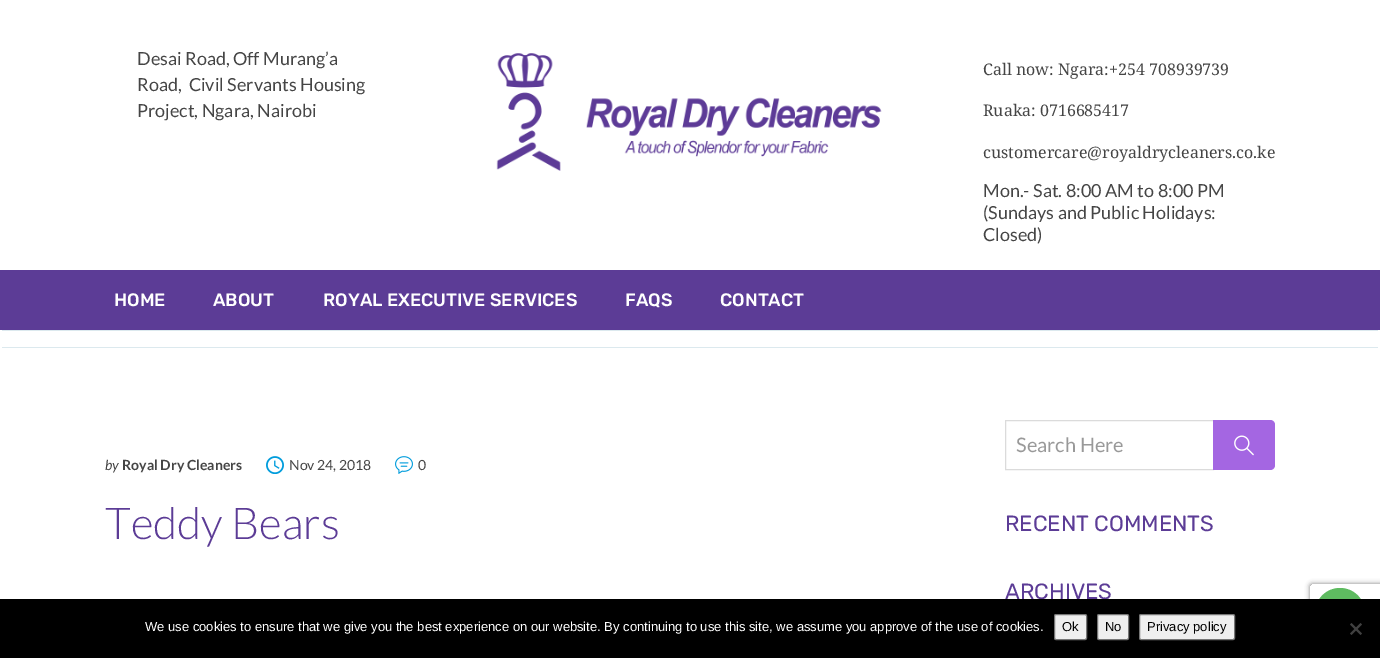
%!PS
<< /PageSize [1380 658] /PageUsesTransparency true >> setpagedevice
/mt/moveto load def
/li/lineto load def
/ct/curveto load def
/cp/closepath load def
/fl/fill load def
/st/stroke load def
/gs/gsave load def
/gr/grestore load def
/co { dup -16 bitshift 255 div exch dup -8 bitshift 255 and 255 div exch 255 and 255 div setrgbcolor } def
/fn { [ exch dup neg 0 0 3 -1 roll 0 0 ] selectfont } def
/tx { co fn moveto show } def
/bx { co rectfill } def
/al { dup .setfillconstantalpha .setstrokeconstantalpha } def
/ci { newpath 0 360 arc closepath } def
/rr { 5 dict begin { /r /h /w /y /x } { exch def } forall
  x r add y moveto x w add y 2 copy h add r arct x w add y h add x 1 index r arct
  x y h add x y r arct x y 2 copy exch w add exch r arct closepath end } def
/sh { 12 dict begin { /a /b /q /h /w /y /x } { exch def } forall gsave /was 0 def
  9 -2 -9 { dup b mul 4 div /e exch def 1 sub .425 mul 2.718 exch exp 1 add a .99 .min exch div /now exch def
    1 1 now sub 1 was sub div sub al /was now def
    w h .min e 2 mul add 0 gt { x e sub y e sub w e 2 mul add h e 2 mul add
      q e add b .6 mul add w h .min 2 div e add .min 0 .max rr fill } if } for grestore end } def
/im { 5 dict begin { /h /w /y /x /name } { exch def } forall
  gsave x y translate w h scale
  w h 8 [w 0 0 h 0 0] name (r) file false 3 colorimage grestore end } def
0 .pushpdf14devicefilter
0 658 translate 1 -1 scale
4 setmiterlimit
0 0 1380 658 16#FFFFFF bx
(media/1.raw) 496 53 386 118 im
0 270 1380 60 16#5C3C96 bx
2 330 1376 1 16#DCE9EE bx
2 347 1376 1 16#DCE9EE bx
(media/2.raw) 266 456 18 18 im
(media/3.raw) 395 456 18 18 im
16#DBDBDB co
1005.5 420.5 208 49 rectstroke
16#A466E2 co
1213 420 mt 1270 420 li 1273 420 1275 422 1275 425 ct 1275 465 li 1275 468 1273 470 1270 470 ct 1213 470 li cp fl
(media/4.raw) 1234 435 20 21 im
gs
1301 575 mt 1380 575 li 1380 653 li 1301 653 li cp 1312 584 mt 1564 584 li 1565 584 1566 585 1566 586 ct 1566 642 li 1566 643 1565 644 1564 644 ct 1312 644 li 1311 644 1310 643 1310 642 ct 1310 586 li 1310 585 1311 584 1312 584 ct cp eoclip newpath
16#808080 co
1310 584 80 60 2 2.5 1 sh
gr
16#5EBB60 co
1340 613 25 ci fl
(Desai Road, Off Murang’a) 137 65 /Lato-Regular 18 16#454545 tx
(Road,  Civil Servants Housing) 137 91 /Lato-Regular 18 16#454545 tx
(Project, Ngara, Nairobi) 137 117 /Lato-Regular 18 16#454545 tx
(Call now: Ngara:+254 708939739) 983 75 /NotoSerif-Regular 16 16#454545 tx
(Ruaka: 0716685417) 983 116 /NotoSerif-Regular 16 16#454545 tx
(customercare@royaldrycleaners.co.ke) 983 158 /NotoSerif-Regular 16 16#454545 tx
(Mon.- Sat. 8:00 AM to 8:00 PM) 983 197 /Lato-Regular 18 16#454545 tx
(\(Sundays and Public Holidays:) 983 219 /Lato-Regular 18 16#454545 tx
(Closed\)) 983 241 /Lato-Regular 18 16#454545 tx
(HOME) 114 306 /Rubik-Medium 18 16#FFFFFF tx
(ABOUT) 213 306 /Rubik-Medium 18 16#FFFFFF tx
(ROYAL EXECUTIVE SERVICES) 323 306 /Rubik-Medium 18 16#FFFFFF tx
(FAQS) 625 306 /Rubik-Medium 18 16#FFFFFF tx
(CONTACT) 720 306 /Rubik-Medium 18 16#FFFFFF tx
(by) 105 470 /Lato-Italic 14 16#454545 tx
(Royal Dry Cleaners) 122 470 /Lato-Bold 14 16#454545 tx
(Nov 24, 2018) 289 470 /Lato-Regular 14 16#454545 tx
(0) 418 470 /Lato-Regular 14 16#454545 tx
(Teddy Bears) 105 539 /Lato-Light 44 16#5C3C96 tx
(Search Here) 1016 452 /Lato-Regular 20 16#999999 tx
(RECENT COMMENTS) 1005 531 /Rubik-Light 22 16#5C3C96 tx
(ARCHIVES) 1005 599 /Rubik-Light 22 16#5C3C96 tx
0 599 1380 59 16#000000 bx
(We use cookies to ensure that we give you the best experience on our website. By continuing to use this site, we assume you approve of the use of cookies.) 145 631 /LiberationSans-Regular 13 16#FFFFFF tx
16#EFEFEF co
1054.5 614.5 32 25 1.5 rr gs fl gr
16#767676 co
st
(Ok) 1062 631 /LiberationSans-Regular 13 16#000000 tx
16#EFEFEF co
1097.5 614.5 31 25 1.5 rr gs fl gr
16#767676 co
st
(No) 1105 631 /LiberationSans-Regular 13 16#000000 tx
16#EFEFEF co
1139.5 614.5 95 25 1.5 rr gs fl gr
16#767676 co
st
(Privacy policy) 1147 631 /LiberationSans-Regular 13 16#000000 tx
16#404040 co
1360.5 623 mt 1362 624.5 li 1351.5 635 li 1350 633.5 li cp fl
1350 624.5 mt 1351.5 623 li 1362 633.5 li 1360.5 635 li cp fl
.poppdf14devicefilter showpage
